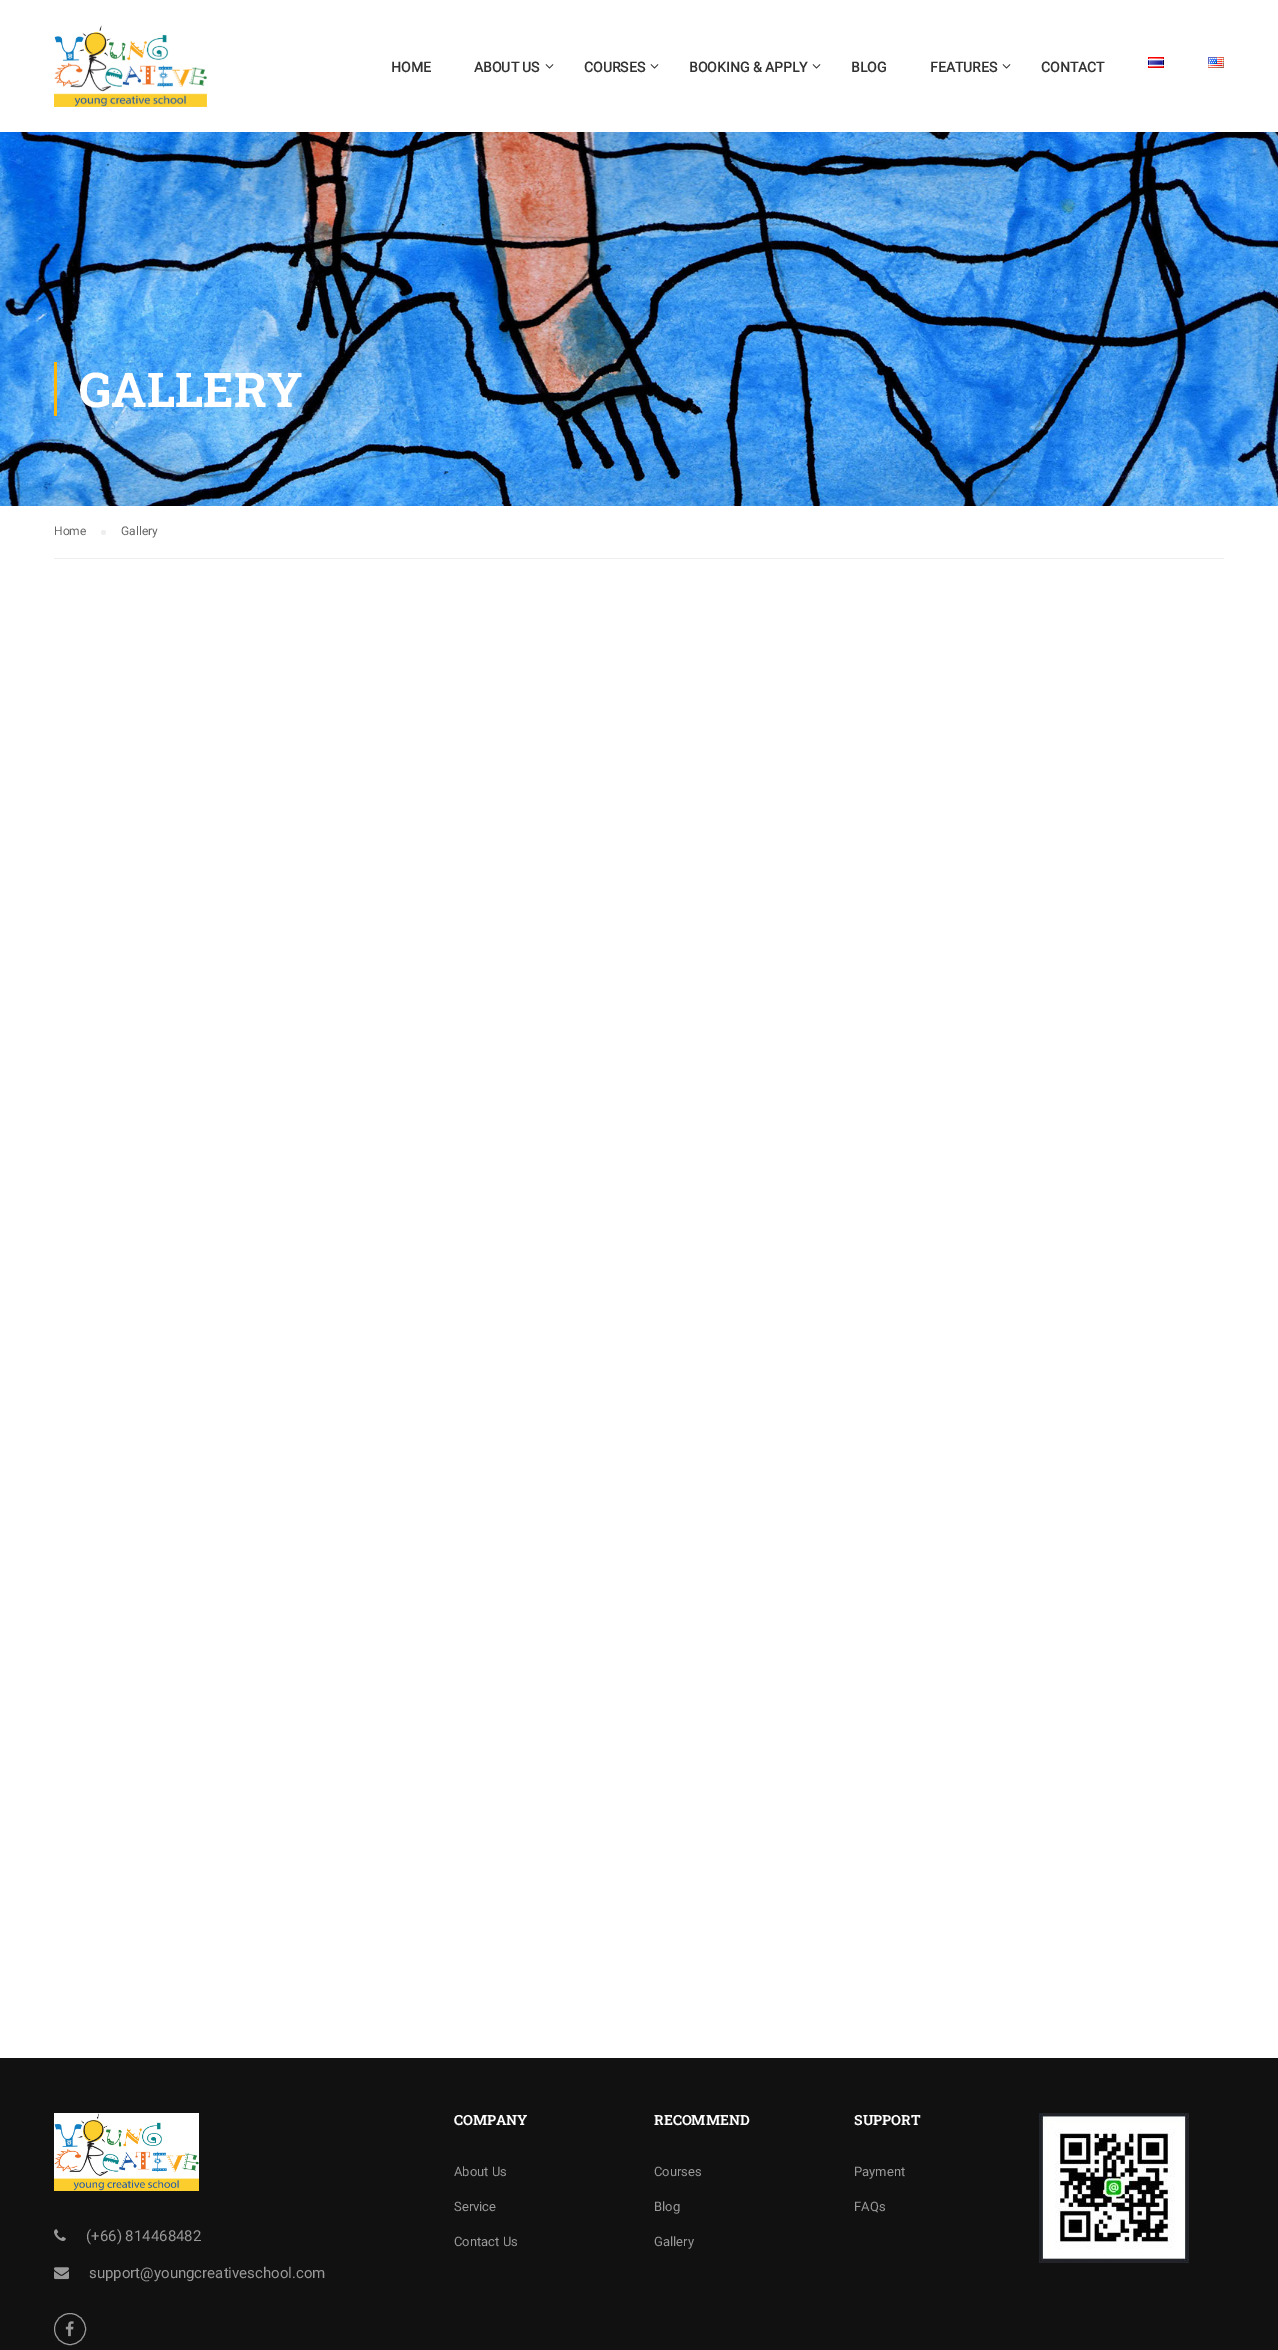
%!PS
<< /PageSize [1278 2350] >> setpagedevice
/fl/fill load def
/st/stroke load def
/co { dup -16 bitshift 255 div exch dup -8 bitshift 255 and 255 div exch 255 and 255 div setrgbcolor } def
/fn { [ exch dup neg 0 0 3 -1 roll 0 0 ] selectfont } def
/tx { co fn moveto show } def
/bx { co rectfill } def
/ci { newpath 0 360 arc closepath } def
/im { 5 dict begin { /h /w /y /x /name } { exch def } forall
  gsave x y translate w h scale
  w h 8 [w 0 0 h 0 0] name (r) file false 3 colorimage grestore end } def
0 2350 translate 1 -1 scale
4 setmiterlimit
0 0 1278 2350 16#FFFFFF bx
(media/1.raw) 54 25 153 82 im
(media/2.raw) 545 64 9 5 im
(media/2.raw) 650 64 9 5 im
(media/2.raw) 812 64 9 5 im
(media/2.raw) 1002 64 9 5 im
(media/3.raw) 1148 57 16 11 im
(media/4.raw) 1208 57 16 11 im
(media/5.raw) 0 132 1278 374 im
54 362 3 54 16#FFB606 bx
54 558 1170 1 16#EEEEEE bx
103.5 532.5 2.5 ci fl
0 2058 1278 292 16#111111 bx
(media/6.raw) 1039 2113 150 150 im
(media/7.raw) 54 2113 145 78 im
(media/8.raw) 54 2229 12 12 im
(media/9.raw) 54 2267 15 13 im
16#999999 co
70 2329 15.5 ci st
(media/10.raw) 65 2321 9 16 im
(HOME) 391 72 /Roboto-Bold 14 16#333333 tx
(ABOUT US) 474 72 /Roboto-Bold 14 16#333333 tx
(COURSES) 584 72 /Roboto-Bold 14 16#333333 tx
(BOOKING & APPLY) 689 72 /Roboto-Bold 14 16#333333 tx
(BLOG) 851 72 /Roboto-Bold 14 16#333333 tx
(FEATURES) 930 72 /Roboto-Bold 14 16#333333 tx
(CONTACT) 1041 72 /Roboto-Bold 14 16#333333 tx
(GALLERY) 79 407 /RobotoSlab-Bold 48 16#FFFFFF tx
(Home) 54 535 /Roboto-Regular 12 16#666666 tx
(Gallery) 121 535 /Roboto-Regular 12 16#666666 tx
(COMPANY) 454 2125 /RobotoSlab-Bold 14 16#FFFFFF tx
(About Us) 454 2176 /Roboto-Regular 13 16#999999 tx
(Service) 454 2211 /Roboto-Regular 13 16#999999 tx
(Contact Us) 454 2246 /Roboto-Regular 13 16#999999 tx
(RECOMMEND) 654 2125 /RobotoSlab-Bold 14 16#FFFFFF tx
(Courses) 654 2176 /Roboto-Regular 13 16#999999 tx
(Blog) 654 2211 /Roboto-Regular 13 16#999999 tx
(Gallery) 654 2246 /Roboto-Regular 13 16#999999 tx
(SUPPORT) 854 2125 /RobotoSlab-Bold 14 16#FFFFFF tx
(Payment) 854 2176 /Roboto-Regular 13 16#999999 tx
(FAQs) 854 2211 /Roboto-Regular 13 16#999999 tx
(\(+66\) 814468482) 86 2241 /Roboto-Regular 15 16#999999 tx
(support@youngcreativeschool.com) 89 2278 /Roboto-Regular 15 16#999999 tx
showpage
